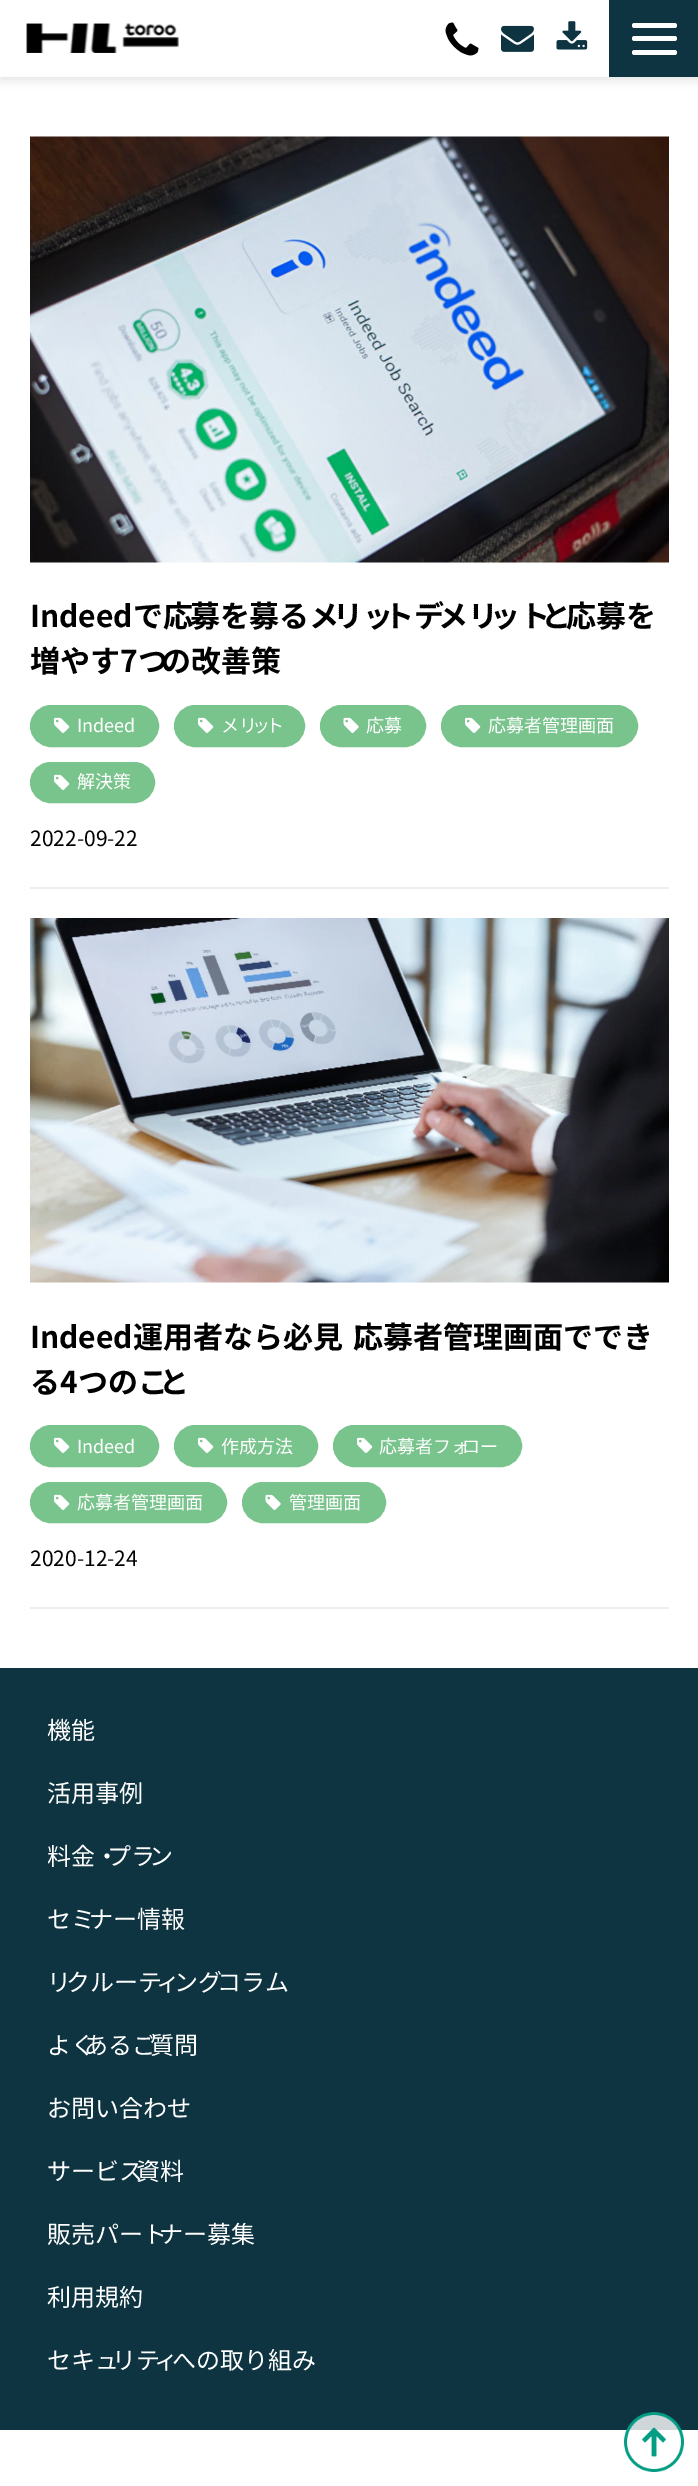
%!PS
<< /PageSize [698 2486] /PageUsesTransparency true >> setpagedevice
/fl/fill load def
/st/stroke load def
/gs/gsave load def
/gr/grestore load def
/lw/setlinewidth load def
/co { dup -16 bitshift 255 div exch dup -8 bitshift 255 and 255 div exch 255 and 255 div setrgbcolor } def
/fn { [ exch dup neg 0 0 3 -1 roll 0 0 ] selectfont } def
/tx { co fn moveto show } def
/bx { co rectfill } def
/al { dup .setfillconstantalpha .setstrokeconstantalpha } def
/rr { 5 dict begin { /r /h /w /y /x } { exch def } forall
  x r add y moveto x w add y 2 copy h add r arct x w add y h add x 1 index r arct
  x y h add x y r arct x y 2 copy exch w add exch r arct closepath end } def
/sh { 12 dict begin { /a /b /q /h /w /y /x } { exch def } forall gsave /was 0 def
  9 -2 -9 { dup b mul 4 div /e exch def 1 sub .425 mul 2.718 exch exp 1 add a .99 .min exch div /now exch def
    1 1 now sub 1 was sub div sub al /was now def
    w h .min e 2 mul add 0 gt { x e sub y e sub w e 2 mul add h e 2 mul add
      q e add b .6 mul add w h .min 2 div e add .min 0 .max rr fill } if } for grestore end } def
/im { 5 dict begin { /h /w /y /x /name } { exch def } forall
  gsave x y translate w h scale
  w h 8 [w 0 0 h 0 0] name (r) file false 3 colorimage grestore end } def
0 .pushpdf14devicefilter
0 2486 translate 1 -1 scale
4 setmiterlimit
0 0 698 2486 16#FFFFFF bx
16#000000 co
0 5 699 76 0 4.5 .1 sh
0 0 609 77 16#FFFFFF bx
(media/1.raw) 26 23 153 30 im
(media/2.raw) 445 22 34 34 im
(media/3.raw) 501 25 33 27 im
(media/4.raw) 556 21 32 29 im
609 0 89 77 16#0D3440 bx
16#FFFFFF co
632 23 45 5 2.5 rr fl
632 36 45 5 2.5 rr fl
632 50 45 5 2.5 rr fl
30 887 639 2 16#EEEEEE bx
(media/5.raw) 30 136 639 427 im
16#79C38C co
31 706 127 40 20 rr gs fl gr
2 lw
st
(media/6.raw) 54 717 16 16 im
175 706 129 40 20 rr gs fl gr
st
(media/6.raw) 198 717 16 16 im
321 706 104 40 20 rr gs fl gr
st
(media/7.raw) 343 717 16 16 im
442 706 195 40 20 rr gs fl gr
st
(media/6.raw) 465 717 16 16 im
31 763 123 39 19.5 rr gs fl gr
st
(media/6.raw) 54 774 16 16 im
30 1607 639 2 16#EEEEEE bx
(media/8.raw) 30 918 639 365 im
16#79C38C co
31 1426 127 40 20 rr gs fl gr
st
(media/6.raw) 54 1437 16 16 im
175 1426 142 40 20 rr gs fl gr
st
(media/6.raw) 198 1437 16 16 im
334 1426 187 40 20 rr gs fl gr
st
(media/6.raw) 357 1437 16 16 im
31 1483 195 39 19.5 rr gs fl gr
st
(media/6.raw) 54 1494 16 16 im
243 1483 142 39 19.5 rr gs fl gr
st
(media/7.raw) 265 1494 16 16 im
0 1668 698 762 16#0D3440 bx
(media/9.raw) 624 2412 60 60 im
(Indeedで応) 30 627 /NotoSansJP-Bold 30 16#000000 tx
(募) 190 627 /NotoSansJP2-Bold 30 16#000000 tx
(を) 220 627 /NotoSansJP-Bold 30 16#000000 tx
(募) 249 627 /NotoSansJP2-Bold 30 16#000000 tx
(るメ) 279 627 /NotoSansJP-Bold 30 16#000000 tx
(リッ) 333 627 /NotoSansJP-Bold 30 16#000000 tx
(トデ) 384 627 /NotoSansJP-Bold 30 16#000000 tx
(メリ) 438 627 /NotoSansJP-Bold 30 16#000000 tx
(ット) 490 627 /NotoSansJP-Bold 30 16#000000 tx
(と) 541 627 /NotoSansJP-Bold 30 16#000000 tx
(応) 566 627 /NotoSansJP-Bold 30 16#000000 tx
(募) 596 627 /NotoSansJP2-Bold 30 16#000000 tx
(を) 626 627 /NotoSansJP-Bold 30 16#000000 tx
(増やす7つ) 30 672 /NotoSansJP-Bold 30 16#000000 tx
(の改善策) 161 672 /NotoSansJP-Bold 30 16#000000 tx
(Indeed) 77 732 /NotoSansJP-Regular 18 16#FFFFFF tx
(メリ) 221 732 /NotoSansJP-Regular 18 16#FFFFFF tx
(ッ) 252 732 /NotoSansJP-Regular 18 16#FFFFFF tx
(ト) 266 732 /NotoSansJP-Regular 18 16#FFFFFF tx
(応募) 366 732 /NotoSansJP-Regular 18 16#FFFFFF tx
(応募者管理画面) 488 732 /NotoSansJP-Regular 18 16#FFFFFF tx
(解決策) 77 788 /NotoSansJP-Regular 18 16#FFFFFF tx
(2022-09-22) 30 846 /NotoSansJP-Regular 21 16#000000 tx
(Indeed運用者なら必見！) 30 1348 /NotoSansJP2-Bold 30 16#000000 tx
(応募者管理画面ででき) 353 1348 /NotoSansJP2-Bold 30 16#000000 tx
(る4つのこ) 30 1393 /NotoSansJP2-Bold 30 16#000000 tx
(と) 159 1393 /NotoSansJP2-Bold 30 16#000000 tx
(Indeed) 77 1453 /NotoSansJP-Regular 18 16#FFFFFF tx
(作成方法) 221 1453 /NotoSansJP-Regular 18 16#FFFFFF tx
(応募者フォ) 379 1453 /NotoSansJP-Regular 18 16#FFFFFF tx
(ロー) 462 1453 /NotoSansJP-Regular 18 16#FFFFFF tx
(応募者管理画面) 77 1509 /NotoSansJP-Regular 18 16#FFFFFF tx
(管理画面) 289 1509 /NotoSansJP-Regular 18 16#FFFFFF tx
(2020-12-24) 30 1566 /NotoSansJP-Regular 21 16#000000 tx
(機能) 47 1739 /NotoSansJP-Regular 24 16#FFFFFF tx
(活用事例) 47 1802 /NotoSansJP-Regular 24 16#FFFFFF tx
(料金・) 47 1865 /NotoSansJP-Regular 24 16#FFFFFF tx
(プラ) 107 1865 /NotoSansJP-Regular 24 16#FFFFFF tx
(ン) 149 1865 /NotoSansJP-Regular 24 16#FFFFFF tx
(セミ) 47 1928 /NotoSansJP-Regular 24 16#FFFFFF tx
(ナー情報) 89 1928 /NotoSansJP-Regular 24 16#FFFFFF tx
(リ) 47 1991 /NotoSansJP-Regular 24 16#FFFFFF tx
(クルーテ) 66 1991 /NotoSansJP-Regular 24 16#FFFFFF tx
(ィ) 156 1991 /NotoSansJP-Regular 24 16#FFFFFF tx
(ング) 174 1991 /NotoSansJP-Regular 24 16#FFFFFF tx
(コラム) 217 1991 /NotoSansJP-Regular 24 16#FFFFFF tx
(よく) 47 2054 /NotoSansJP-Regular 24 16#FFFFFF tx
(あるご) 84 2054 /NotoSansJP-Regular 24 16#FFFFFF tx
(質問) 150 2054 /NotoSansJP-Regular 24 16#FFFFFF tx
(お問い合わせ) 47 2117 /NotoSansJP-Regular 24 16#FFFFFF tx
(サービス) 47 2180 /NotoSansJP-Regular 24 16#FFFFFF tx
(資料) 136 2180 /NotoSansJP-Regular 24 16#FFFFFF tx
(販売パート) 47 2243 /NotoSansJP-Regular 24 16#FFFFFF tx
(ナー募集) 159 2243 /NotoSansJP-Regular 24 16#FFFFFF tx
(利用規約) 47 2306 /NotoSansJP-Regular 24 16#FFFFFF tx
(セキュ) 47 2369 /NotoSansJP-Regular 24 16#FFFFFF tx
(リテ) 112 2369 /NotoSansJP-Regular 24 16#FFFFFF tx
(ィ) 154 2369 /NotoSansJP-Regular 24 16#FFFFFF tx
(への取り組み) 172 2369 /NotoSansJP-Regular 24 16#FFFFFF tx
.poppdf14devicefilter showpage
